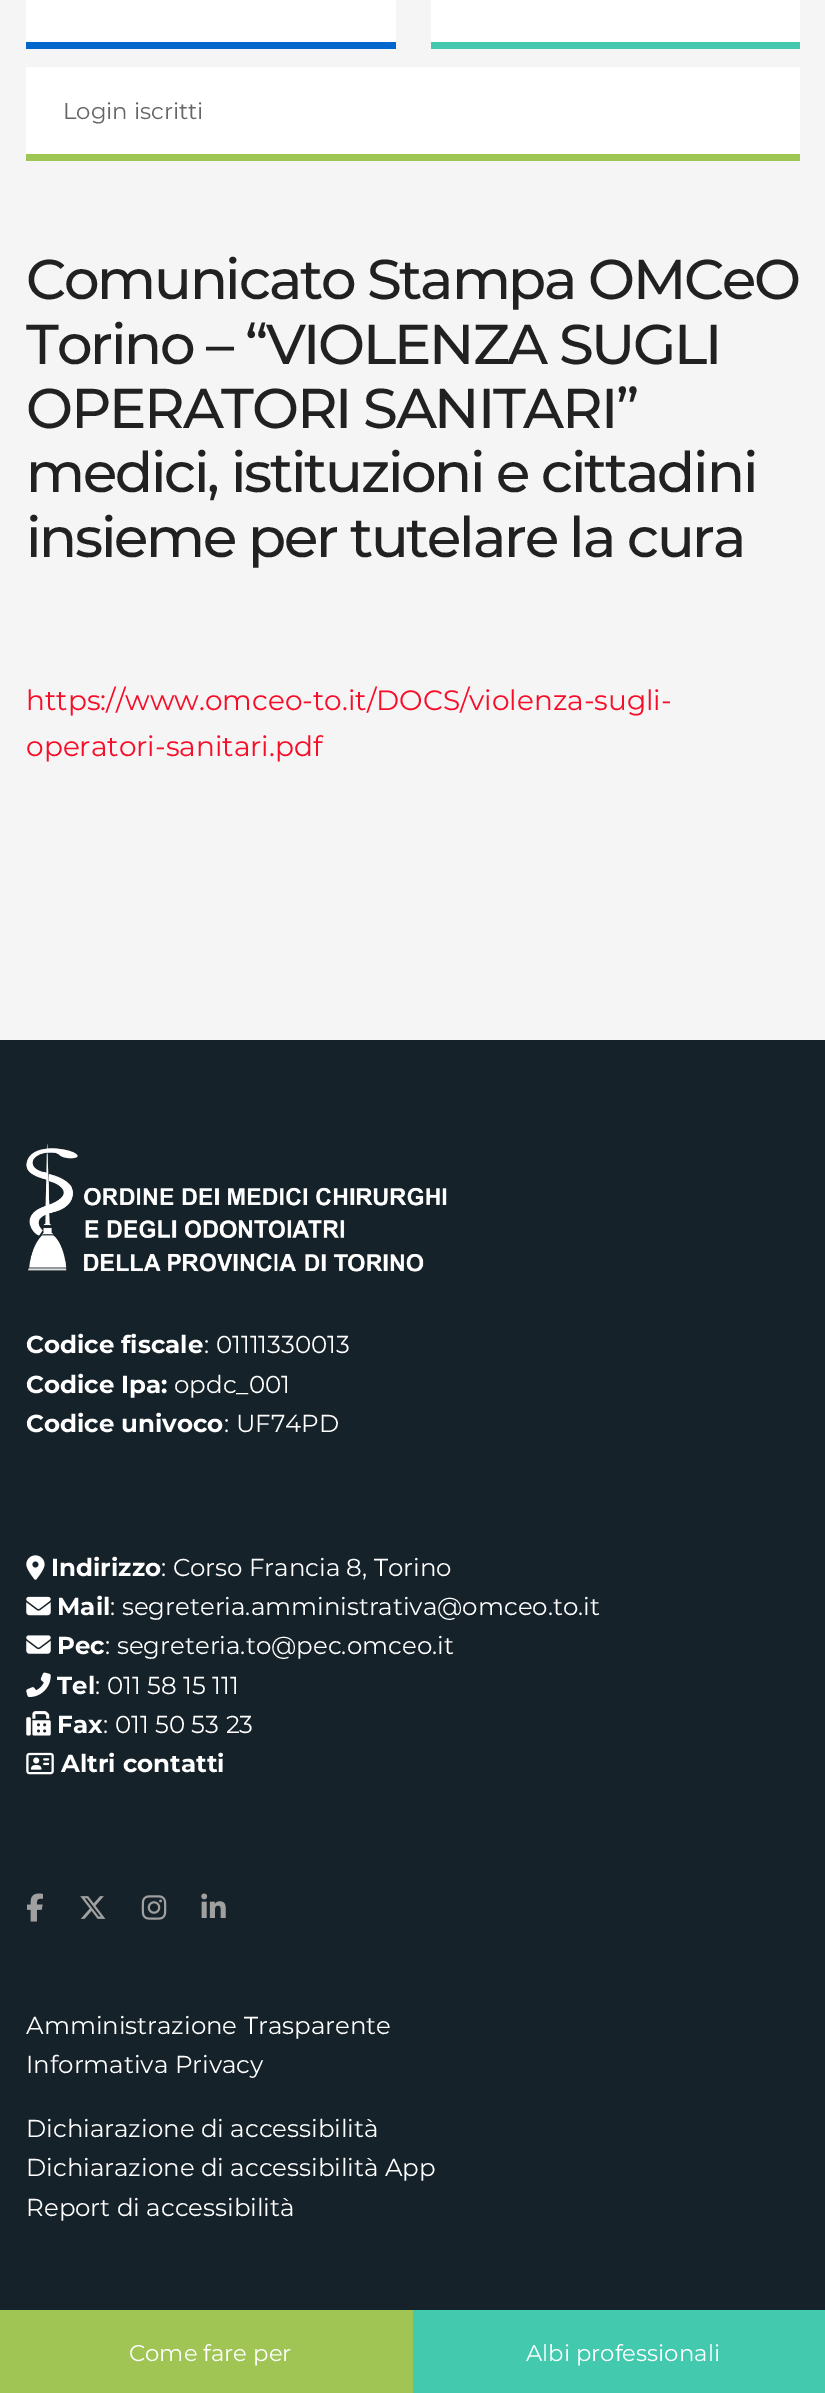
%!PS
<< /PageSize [825 2393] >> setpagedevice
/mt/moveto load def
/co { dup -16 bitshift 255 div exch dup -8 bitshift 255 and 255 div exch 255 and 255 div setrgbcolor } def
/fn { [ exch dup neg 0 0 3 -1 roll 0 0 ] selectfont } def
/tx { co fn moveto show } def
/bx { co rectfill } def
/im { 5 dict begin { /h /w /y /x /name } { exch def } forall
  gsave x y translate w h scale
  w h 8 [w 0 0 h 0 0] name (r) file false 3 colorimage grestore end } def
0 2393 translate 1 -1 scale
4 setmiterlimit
0 0 825 2393 16#F5F5F5 bx
26 42 370 7 16#0267CC bx
26 0 370 42 16#FFFFFF bx
431 42 369 7 16#44C9AE bx
431 0 369 42 16#FFFFFF bx
26 154 774 7 16#9FC555 bx
26 67 774 87 16#FFFFFF bx
0 2310 413 83 16#A0C555 bx
413 2310 412 83 16#42C9AE bx
0 1040 825 1270 16#162229 bx
(media/1.raw) 26 1144 421 128 im
(media/2.raw) 26 1555 19 25 im
(media/3.raw) 26 1596 25 20 im
(media/4.raw) 26 1635 25 19 im
(media/5.raw) 26 1672 25 26 im
(media/6.raw) 26 1711 25 25 im
(media/7.raw) 26 1752 28 23 im
(media/8.raw) 27 1893 16 29 im
(media/9.raw) 80 1896 26 23 im
(media/10.raw) 141 1895 26 25 im
(media/11.raw) 201 1893 25 25 im
(Login iscritti) 63 119 /Montserrat-Regular 22.75 16#666666 tx
(Come fare per) 129 2361 /Montserrat-Regular 22.75 16#FFFFFF tx
(Albi professionali) 526 2361 /Montserrat-Regular 22.75 16#FFFFFF tx
/Montserrat-Medium 56 fn
16#212121 co
26 299 mt -2.25 0 (Comunicato Stampa OMCeO) ashow
26 364 mt -2.25 0 (Torino – “VIOLENZA SUGLI) ashow
26 428 mt -2.25 0 (OPERATORI SANITARI”) ashow
26 492 mt -2.25 0 (medici, istituzioni e cittadini) ashow
26 557 mt -2.25 0 (insieme per tutelare la cura) ashow
(https://www.omceo-to.it/DOCS/violenza-sugli-) 26 710 /Montserrat-Regular 28 16#F70D28 tx
(operatori-sanitari.pdf) 26 756 /Montserrat-Regular 28 16#F70D28 tx
(Codice fiscale) 26 1353 /Montserrat-Bold 24.5 16#FFFFFF tx
(: 01111330013) 204 1353 /Montserrat-Regular 24.5 16#FFFFFF tx
(Codice Ipa:) 26 1393 /Montserrat-Bold 24.5 16#FFFFFF tx
(opdc_001) 174 1393 /Montserrat-Regular 24.5 16#FFFFFF tx
(Codice univoco) 26 1432 /Montserrat-Bold 24.5 16#FFFFFF tx
(: UF74PD) 224 1432 /Montserrat-Regular 24.5 16#FFFFFF tx
(Indirizzo) 51 1576 /Montserrat-Bold 24.5 16#FFFFFF tx
(: Corso Francia 8, Torino) 161 1576 /Montserrat-Regular 24.5 16#FFFFFF tx
(Mail) 57 1615 /Montserrat-Bold 24.5 16#FFFFFF tx
(: segreteria.amministrativa@omceo.to.it) 110 1615 /Montserrat-Regular 24.5 16#FFFFFF tx
(Pec) 57 1654 /Montserrat-Bold 24.5 16#FFFFFF tx
(: segreteria.to@pec.omceo.it) 105 1654 /Montserrat-Regular 24.5 16#FFFFFF tx
(Tel) 57 1694 /Montserrat-Bold 24.5 16#FFFFFF tx
(: 011 58 15 111) 95 1694 /Montserrat-Regular 24.5 16#FFFFFF tx
(Fax) 57 1733 /Montserrat-Bold 24.5 16#FFFFFF tx
(: 011 50 53 23) 103 1733 /Montserrat-Regular 24.5 16#FFFFFF tx
(Altri contatti) 61 1772 /Montserrat-Bold 24.5 16#FFFFFF tx
(Amministrazione Trasparente) 26 2034 /Montserrat-Regular 24.5 16#FFFFFF tx
(Informativa Privacy) 26 2073 /Montserrat-Regular 24.5 16#FFFFFF tx
(Dichiarazione di accessibilità) 26 2137 /Montserrat-Regular 24.5 16#FFFFFF tx
(Dichiarazione di accessibilità App) 26 2176 /Montserrat-Regular 24.5 16#FFFFFF tx
(Report di accessibilità) 26 2216 /Montserrat-Regular 24.5 16#FFFFFF tx
showpage
